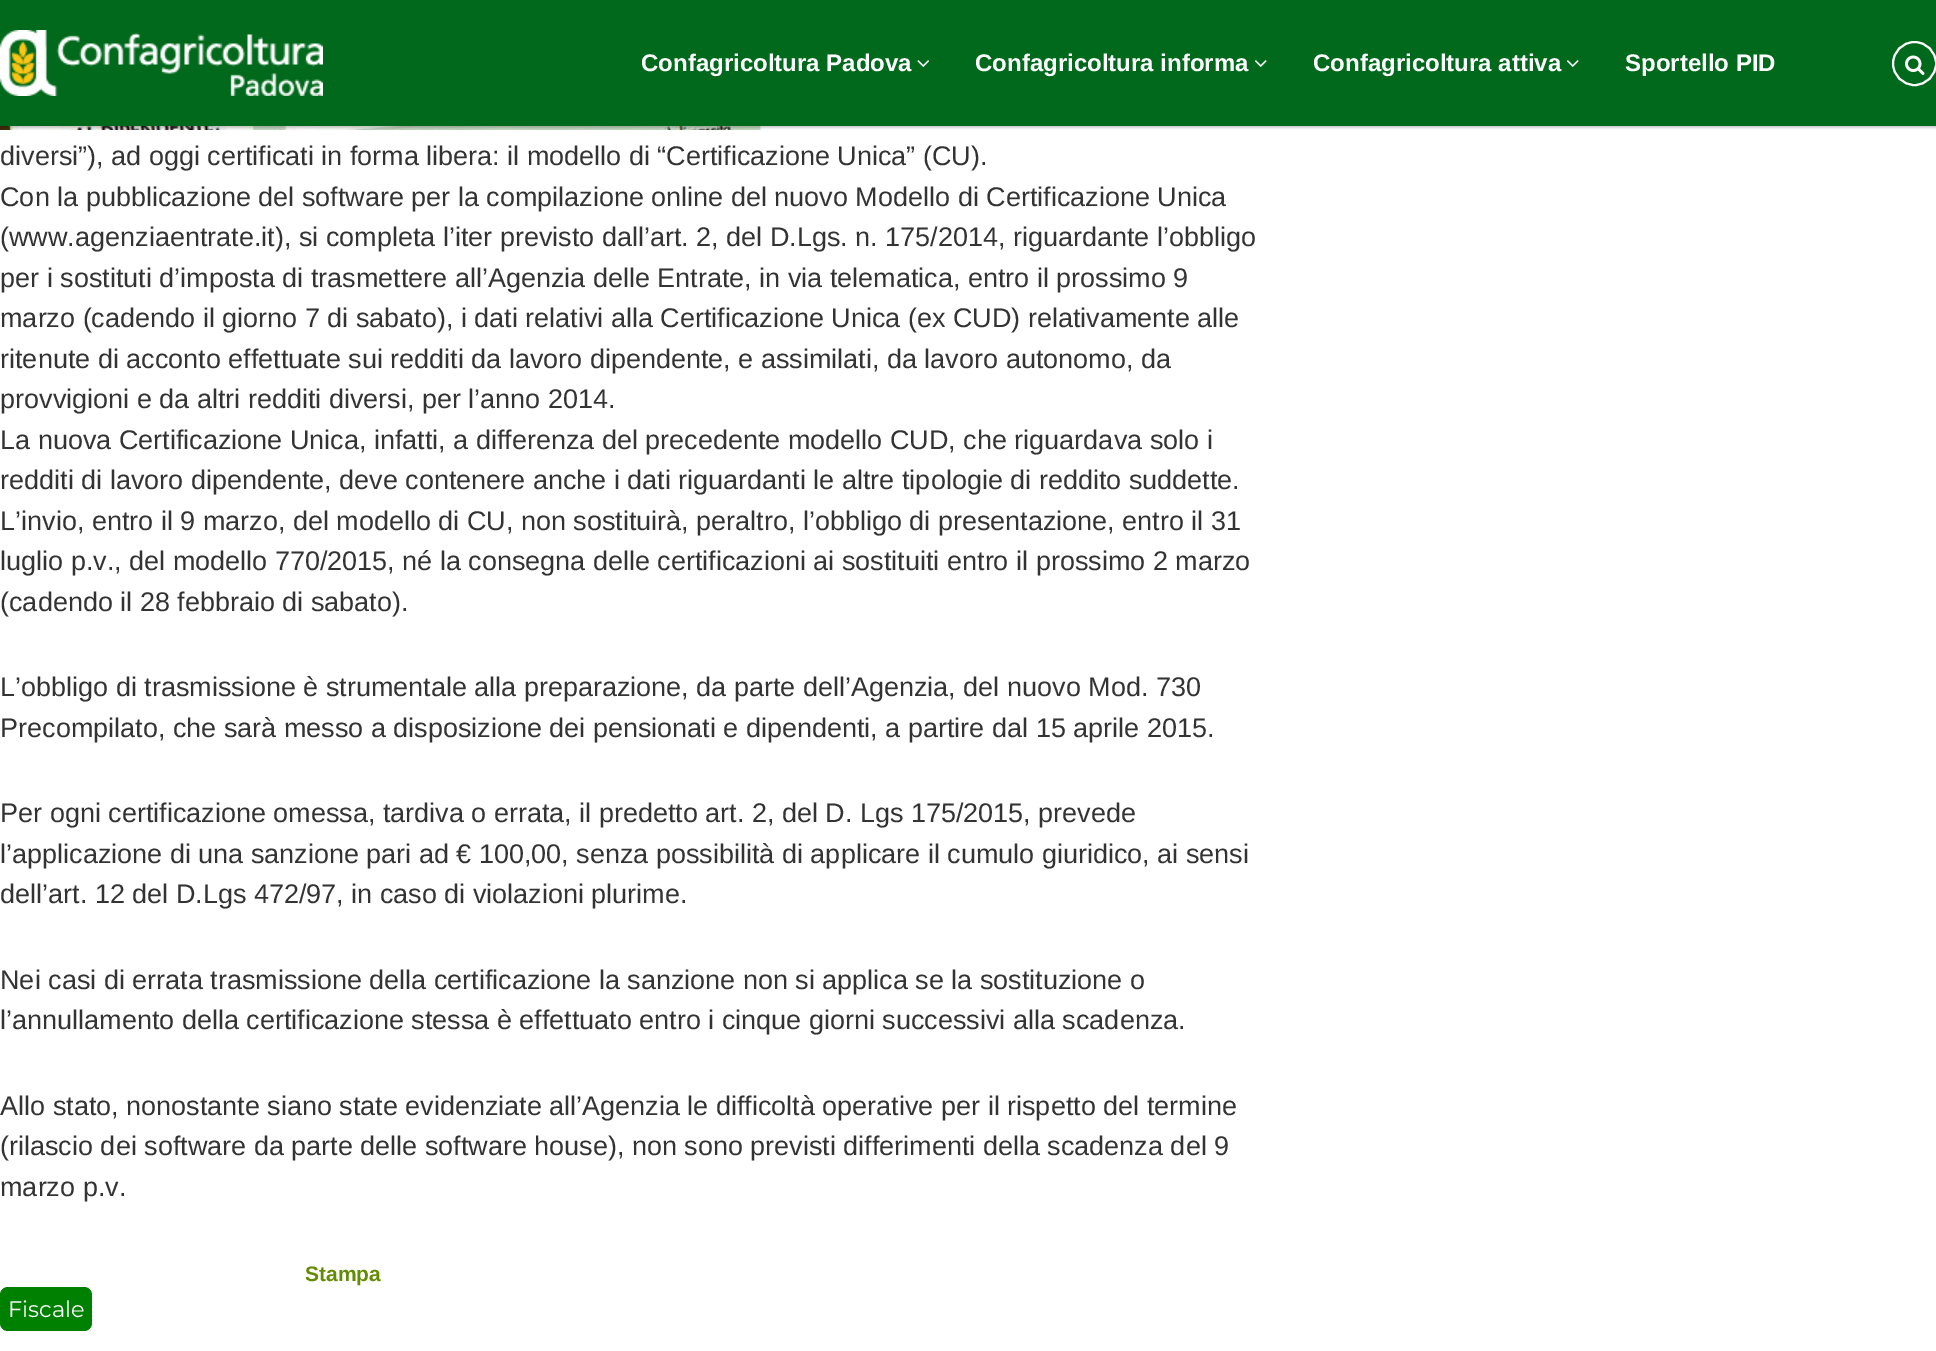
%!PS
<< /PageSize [1936 1351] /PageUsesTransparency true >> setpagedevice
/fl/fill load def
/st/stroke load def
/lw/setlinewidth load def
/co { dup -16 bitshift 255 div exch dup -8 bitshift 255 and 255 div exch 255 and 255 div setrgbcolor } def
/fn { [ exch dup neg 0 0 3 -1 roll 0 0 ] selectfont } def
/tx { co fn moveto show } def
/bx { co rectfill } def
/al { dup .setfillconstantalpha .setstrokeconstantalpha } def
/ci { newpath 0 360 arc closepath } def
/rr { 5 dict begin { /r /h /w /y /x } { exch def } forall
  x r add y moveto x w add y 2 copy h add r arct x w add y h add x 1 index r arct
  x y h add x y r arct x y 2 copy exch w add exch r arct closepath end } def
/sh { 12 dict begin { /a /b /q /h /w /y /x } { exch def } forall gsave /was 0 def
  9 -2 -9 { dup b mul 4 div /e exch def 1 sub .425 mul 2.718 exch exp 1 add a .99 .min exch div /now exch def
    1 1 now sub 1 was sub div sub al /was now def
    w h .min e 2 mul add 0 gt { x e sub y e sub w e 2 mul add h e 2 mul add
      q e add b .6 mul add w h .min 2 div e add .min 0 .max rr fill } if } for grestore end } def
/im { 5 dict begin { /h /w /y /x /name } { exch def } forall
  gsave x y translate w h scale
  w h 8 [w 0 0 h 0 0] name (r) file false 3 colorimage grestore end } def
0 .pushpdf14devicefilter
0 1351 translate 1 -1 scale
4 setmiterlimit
0 0 1936 1351 16#FFFFFF bx
(media/5.raw) 0 126 761 4 im
16#000000 co
0 2 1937 126 0 1 .2 sh
0 0 1936 126 16#01691B bx
(media/1.raw) 0 30 323 66 im
(media/2.raw) 917 60 12 7 im
(media/3.raw) 1255 60 12 7 im
(media/3.raw) 1567 60 12 7 im
16#FFFFFF co
2 lw
1914.5 63.5 21.5 ci st
(media/4.raw) 1905 55 20 20 im
16#008000 co
0 1287 92 44 8 rr fl
(Confagricoltura Padova) 641 71 /LiberationSans-Bold 24 16#FFFFFF tx
(Confagricoltura informa) 975 71 /LiberationSans-Bold 24 16#FFFFFF tx
(Confagricoltura attiva) 1313 71 /LiberationSans-Bold 24 16#FFFFFF tx
(Sportello PID) 1625 71 /LiberationSans-Bold 24 16#FFFFFF tx
(diversi”\), ad oggi certificati in forma libera: il modello di “Certificazione Unica” \(CU\).) 0 165 /LiberationSans-Regular 27 16#333333 tx
(Con la pubblicazione del software per la compilazione online del nuovo Modello di Certificazione Unica) 0 206 /LiberationSans-Regular 27 16#333333 tx
(\(www.agenziaentrate.it\), si completa l’iter previsto dall’art. 2, del D.Lgs. n. 175/2014, riguardante l’obbligo) 0 246 /LiberationSans-Regular 27 16#333333 tx
(per i sostituti d’imposta di trasmettere all’Agenzia delle Entrate, in via telematica, entro il prossimo 9) 0 287 /LiberationSans-Regular 27 16#333333 tx
(marzo \(cadendo il giorno 7 di sabato\), i dati relativi alla Certificazione Unica \(ex CUD\) relativamente alle) 0 327 /LiberationSans-Regular 27 16#333333 tx
(ritenute di acconto effettuate sui redditi da lavoro dipendente, e assimilati, da lavoro autonomo, da) 0 368 /LiberationSans-Regular 27 16#333333 tx
(provvigioni e da altri redditi diversi, per l’anno 2014.) 0 408 /LiberationSans-Regular 27 16#333333 tx
(La nuova Certificazione Unica, infatti, a differenza del precedente modello CUD, che riguardava solo i) 0 449 /LiberationSans-Regular 27 16#333333 tx
(redditi di lavoro dipendente, deve contenere anche i dati riguardanti le altre tipologie di reddito suddette.) 0 489 /LiberationSans-Regular 27 16#333333 tx
(L’invio, entro il 9 marzo, del modello di CU, non sostituirà, peraltro, l’obbligo di presentazione, entro il 31) 0 530 /LiberationSans-Regular 27 16#333333 tx
(luglio p.v., del modello 770/2015, né la consegna delle certificazioni ai sostituiti entro il prossimo 2 marzo) 0 570 /LiberationSans-Regular 27 16#333333 tx
(\(cadendo il 28 febbraio di sabato\).) 0 611 /LiberationSans-Regular 27 16#333333 tx
(L’obbligo di trasmissione è strumentale alla preparazione, da parte dell’Agenzia, del nuovo Mod. 730) 0 696 /LiberationSans-Regular 27 16#333333 tx
(Precompilato, che sarà messo a disposizione dei pensionati e dipendenti, a partire dal 15 aprile 2015.) 0 737 /LiberationSans-Regular 27 16#333333 tx
(Per ogni certificazione omessa, tardiva o errata, il predetto art. 2, del D. Lgs 175/2015, prevede) 0 822 /LiberationSans-Regular 27 16#333333 tx
(l’applicazione di una sanzione pari ad € 100,00, senza possibilità di applicare il cumulo giuridico, ai sensi) 0 863 /LiberationSans-Regular 27 16#333333 tx
(dell’art. 12 del D.Lgs 472/97, in caso di violazioni plurime.) 0 903 /LiberationSans-Regular 27 16#333333 tx
(Nei casi di errata trasmissione della certificazione la sanzione non si applica se la sostituzione o) 0 989 /LiberationSans-Regular 27 16#333333 tx
(l’annullamento della certificazione stessa è effettuato entro i cinque giorni successivi alla scadenza.) 0 1029 /LiberationSans-Regular 27 16#333333 tx
(Allo stato, nonostante siano state evidenziate all’Agenzia le difficoltà operative per il rispetto del termine) 0 1115 /LiberationSans-Regular 27 16#333333 tx
(\(rilascio dei software da parte delle software house\), non sono previsti differimenti della scadenza del 9) 0 1155 /LiberationSans-Regular 27 16#333333 tx
(marzo p.v.) 0 1196 /LiberationSans-Regular 27 16#333333 tx
(Stampa) 305 1281 /LiberationSans-Bold 21 16#638C03 tx
(Fiscale) 8 1317 /Montserrat-Regular 22.5 16#FFFFFF tx
.poppdf14devicefilter showpage
